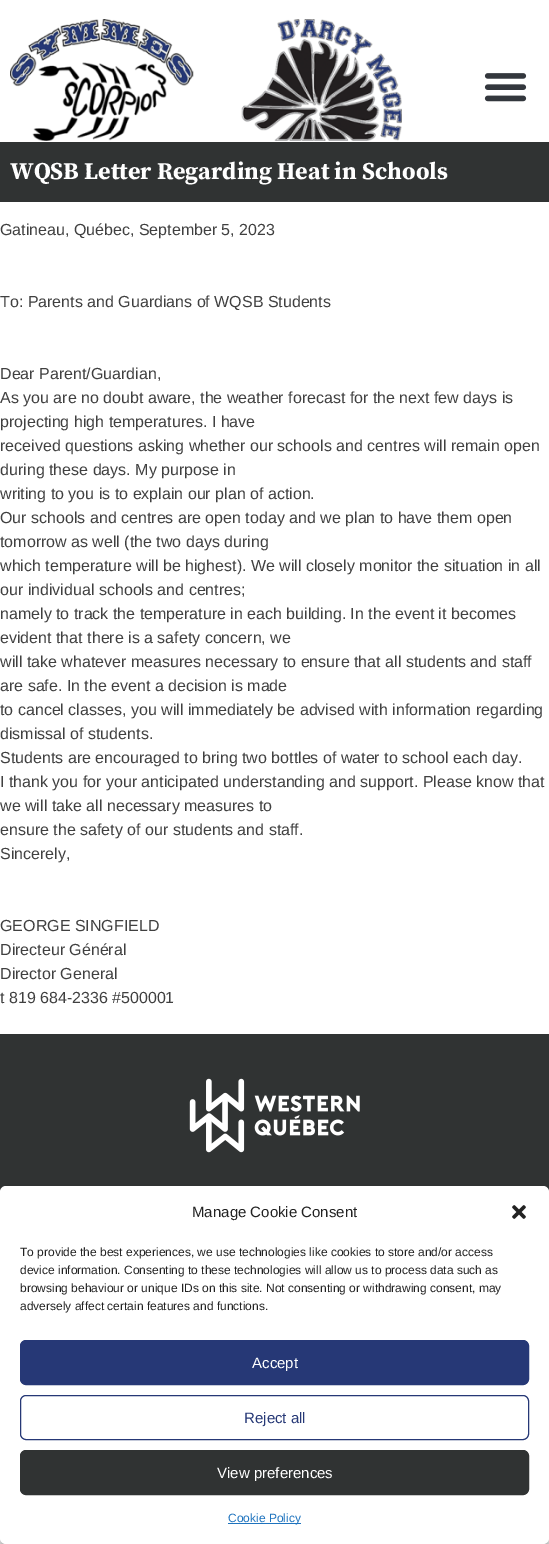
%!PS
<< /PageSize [549 1544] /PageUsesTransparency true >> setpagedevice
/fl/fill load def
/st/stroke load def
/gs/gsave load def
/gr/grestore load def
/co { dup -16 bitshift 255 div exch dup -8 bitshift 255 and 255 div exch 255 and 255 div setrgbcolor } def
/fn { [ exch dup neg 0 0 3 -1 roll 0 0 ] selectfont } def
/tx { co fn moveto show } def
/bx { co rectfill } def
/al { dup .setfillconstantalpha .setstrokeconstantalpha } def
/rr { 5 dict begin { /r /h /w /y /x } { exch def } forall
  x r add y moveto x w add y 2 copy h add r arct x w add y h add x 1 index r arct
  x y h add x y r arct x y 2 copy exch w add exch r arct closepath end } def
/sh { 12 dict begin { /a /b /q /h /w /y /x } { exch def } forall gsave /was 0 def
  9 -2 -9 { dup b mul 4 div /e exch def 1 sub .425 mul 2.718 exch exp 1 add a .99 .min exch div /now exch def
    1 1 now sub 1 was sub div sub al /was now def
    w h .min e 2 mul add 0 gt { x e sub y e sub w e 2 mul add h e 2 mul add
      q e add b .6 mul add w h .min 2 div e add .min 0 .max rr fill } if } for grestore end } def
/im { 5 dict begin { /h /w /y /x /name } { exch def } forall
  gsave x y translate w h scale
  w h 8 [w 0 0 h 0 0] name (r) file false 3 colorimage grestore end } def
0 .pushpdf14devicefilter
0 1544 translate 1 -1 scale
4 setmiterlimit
0 0 549 1544 16#FFFFFF bx
(media/1.raw) 10 19 392 122 im
(media/2.raw) 484 73 43 29 im
0 142 549 60 16#303333 bx
0 1034 549 158 16#303333 bx
(media/3.raw) 189 1078 171 75 im
16#000000 co
0 1192 549 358 6 3 .23 sh
0 1196 549 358 6 10 .19 sh
16#FFFFFF co
0 1186 549 358 6 rr fl
(media/4.raw) 512 1205 14 14 im
16#263876 co
20.5 1340.5 508 44 5.5 rr gs fl gr
st
20.5 1395.5 508 44 5.5 rr st
16#303333 co
20.5 1450.5 508 44 5.5 rr gs fl gr
st
228 1523 73 1 16#1E73BE bx
(WQSB Letter Regarding Heat in Schools) 10 179 /SourceSerifPro-Bold 24 16#FFFFFF tx
(Gatineau, Québec, September 5, 2023) 0 235 /LiberationSans-Regular 16 16#404040 tx
(To: Parents and Guardians of WQSB Students) 0 307 /LiberationSans-Regular 16 16#404040 tx
(Dear Parent/Guardian,) 0 379 /LiberationSans-Regular 16 16#404040 tx
(As you are no doubt aware, the weather forecast for the next few days is) 0 403 /LiberationSans-Regular 16 16#404040 tx
(projecting high temperatures. I have) 0 427 /LiberationSans-Regular 16 16#404040 tx
(received questions asking whether our schools and centres will remain open) 0 451 /LiberationSans-Regular 16 16#404040 tx
(during these days. My purpose in) 0 475 /LiberationSans-Regular 16 16#404040 tx
(writing to you is to explain our plan of action.) 0 499 /LiberationSans-Regular 16 16#404040 tx
(Our schools and centres are open today and we plan to have them open) 0 523 /LiberationSans-Regular 16 16#404040 tx
(tomorrow as well \(the two days during) 0 547 /LiberationSans-Regular 16 16#404040 tx
(which temperature will be highest\). We will closely monitor the situation in all) 0 571 /LiberationSans-Regular 16 16#404040 tx
(our individual schools and centres;) 0 595 /LiberationSans-Regular 16 16#404040 tx
(namely to track the temperature in each building. In the event it becomes) 0 619 /LiberationSans-Regular 16 16#404040 tx
(evident that there is a safety concern, we) 0 643 /LiberationSans-Regular 16 16#404040 tx
(will take whatever measures necessary to ensure that all students and staff) 0 667 /LiberationSans-Regular 16 16#404040 tx
(are safe. In the event a decision is made) 0 691 /LiberationSans-Regular 16 16#404040 tx
(to cancel classes, you will immediately be advised with information regarding) 0 715 /LiberationSans-Regular 16 16#404040 tx
(dismissal of students.) 0 739 /LiberationSans-Regular 16 16#404040 tx
(Students are encouraged to bring two bottles of water to school each day.) 0 763 /LiberationSans-Regular 16 16#404040 tx
(I thank you for your anticipated understanding and support. Please know that) 0 787 /LiberationSans-Regular 16 16#404040 tx
(we will take all necessary measures to) 0 811 /LiberationSans-Regular 16 16#404040 tx
(ensure the safety of our students and staff.) 0 835 /LiberationSans-Regular 16 16#404040 tx
(Sincerely,) 0 859 /LiberationSans-Regular 16 16#404040 tx
(GEORGE SINGFIELD) 0 931 /LiberationSans-Regular 16 16#404040 tx
(Directeur Général) 0 955 /LiberationSans-Regular 16 16#404040 tx
(Director General) 0 979 /LiberationSans-Regular 16 16#404040 tx
(t 819 684-2336 #500001) 0 1003 /LiberationSans-Regular 16 16#404040 tx
(Manage Cookie Consent) 192 1217 /LiberationSans-Regular 15 16#222222 tx
(To provide the best experiences, we use technologies like cookies to store and/or access) 20 1256 /LiberationSans-Regular 12 16#222222 tx
(device information. Consenting to these technologies will allow us to process data such as) 20 1274 /LiberationSans-Regular 12 16#222222 tx
(browsing behaviour or unique IDs on this site. Not consenting or withdrawing consent, may) 20 1292 /LiberationSans-Regular 12 16#222222 tx
(adversely affect certain features and functions.) 20 1310 /LiberationSans-Regular 12 16#222222 tx
(Accept) 252 1368 /LiberationSans-Regular 15 16#FFFFFF tx
(Reject all) 244 1423 /LiberationSans-Regular 15 16#263876 tx
(View preferences) 217 1478 /LiberationSans-Regular 15 16#FFFFFF tx
(Cookie Policy) 228 1522 /LiberationSans-Regular 12 16#1E73BE tx
.poppdf14devicefilter showpage
